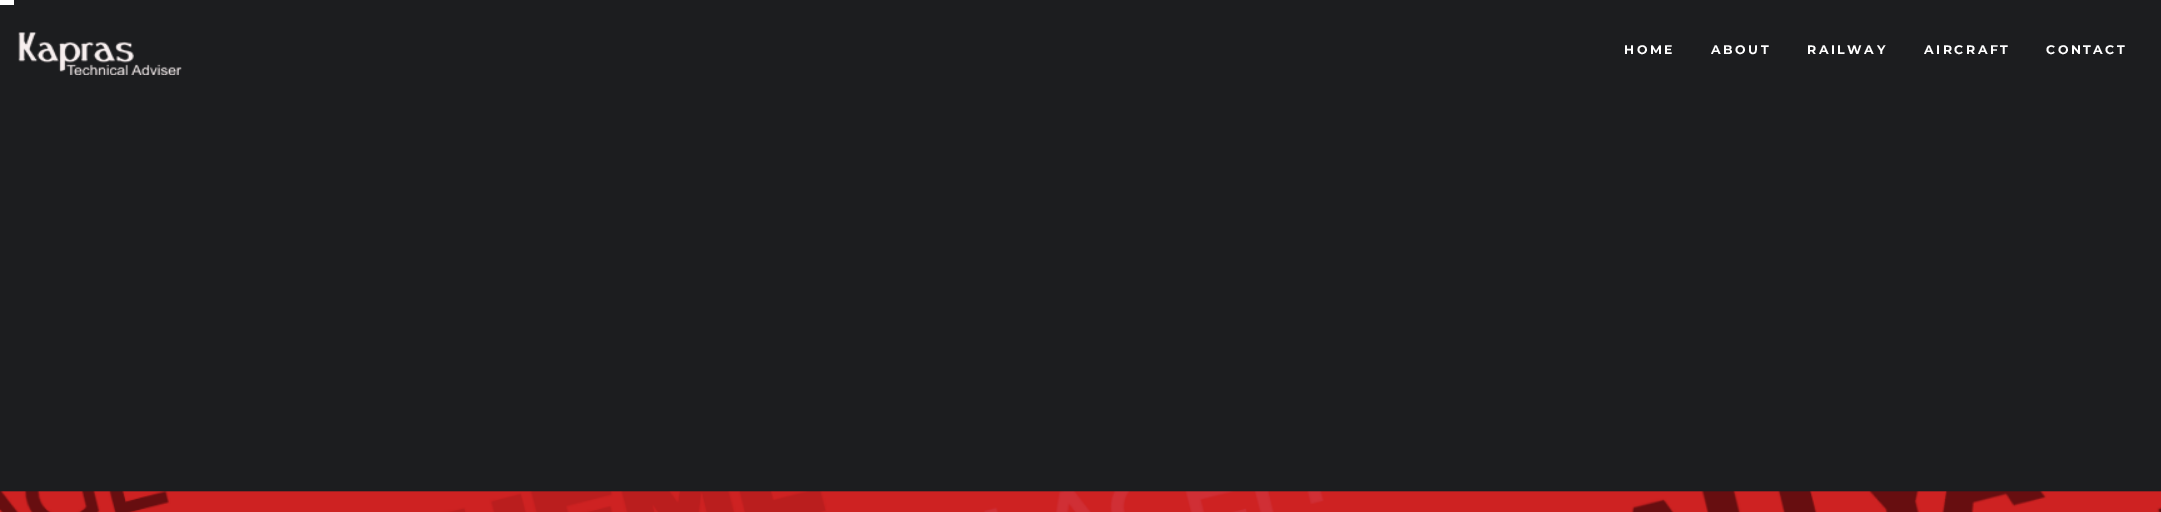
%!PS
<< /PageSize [2161 512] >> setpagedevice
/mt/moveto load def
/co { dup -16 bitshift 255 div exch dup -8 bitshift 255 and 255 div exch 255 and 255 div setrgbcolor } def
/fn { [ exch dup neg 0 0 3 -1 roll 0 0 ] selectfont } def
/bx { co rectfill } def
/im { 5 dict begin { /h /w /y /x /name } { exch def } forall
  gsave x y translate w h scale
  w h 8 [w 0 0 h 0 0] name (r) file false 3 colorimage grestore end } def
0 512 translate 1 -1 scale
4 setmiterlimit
0 0 2161 512 16#1C1D1F bx
0 0 14 5 16#FFFFFF bx
(media/1.raw) 0 491 2161 21 im
(media/2.raw) 18 32 164 43 im
/Montserrat-Bold 12.5 fn
1624 54 mt 2.5 0 (HOME) ashow
1711 54 mt 2.5 0 (ABOUT) ashow
1807 54 mt 2.5 0 (RAILWAY) ashow
1924 54 mt 2.5 0 (AIRCRAFT) ashow
2046 54 mt 2.5 0 (CONTACT) ashow
showpage
